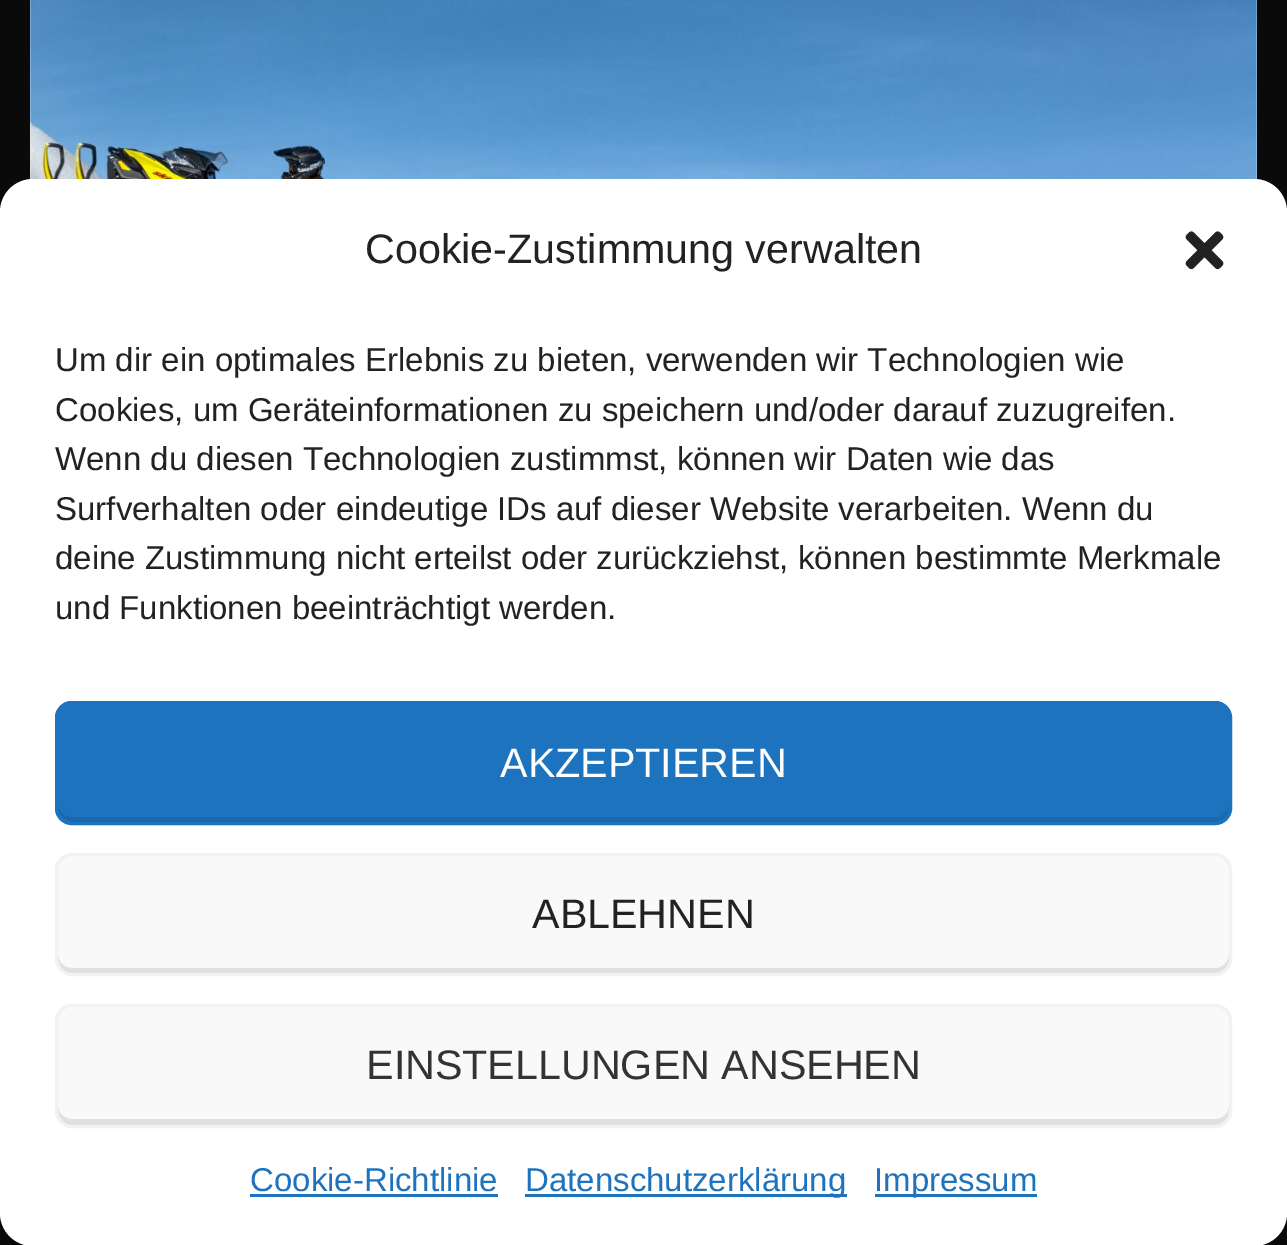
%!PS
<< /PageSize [1287 1245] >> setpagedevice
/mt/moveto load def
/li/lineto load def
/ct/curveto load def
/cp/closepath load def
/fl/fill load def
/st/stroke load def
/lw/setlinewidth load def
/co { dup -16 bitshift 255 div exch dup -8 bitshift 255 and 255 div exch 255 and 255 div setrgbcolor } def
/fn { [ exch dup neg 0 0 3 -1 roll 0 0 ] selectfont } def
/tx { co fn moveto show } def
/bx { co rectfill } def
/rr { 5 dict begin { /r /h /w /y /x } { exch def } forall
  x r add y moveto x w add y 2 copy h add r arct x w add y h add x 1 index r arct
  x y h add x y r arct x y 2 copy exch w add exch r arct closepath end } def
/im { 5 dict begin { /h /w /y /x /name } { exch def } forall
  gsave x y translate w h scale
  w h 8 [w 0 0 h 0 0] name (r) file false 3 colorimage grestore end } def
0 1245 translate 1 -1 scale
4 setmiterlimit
0 0 1287 1245 16#0A0A0A bx
(media/1.raw) 30 0 1227 180 im
16#FFFFFF co
0 179 1287 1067 33 rr fl
(media/2.raw) 1185 231 39 39 im
16#1E73BE co
55 701 1177 124 17 rr fl
16#1B68AB co
58 803 mt 58 808 li 58 816 64 822 72 822 ct 1215 822 li 1223 822 1229 816 1229 808 ct 1229 803 li 1229 811 1223 817 1216 817 ct 72 817 li 64 817 58 811 58 803 ct cp fl
16#1E73BE co
3 lw
56.5 702.5 1174 121 15.5 rr st
16#F9F9F9 co
55 853 1177 123 17 rr fl
16#E0E0E0 co
58 954 mt 58 960 li 58 968 64 974 72 974 ct 1215 974 li 1223 974 1229 968 1229 960 ct 1229 954 li 1229 962 1223 968 1216 968 ct 72 968 li 64 968 58 962 58 954 ct cp fl
16#F2F2F2 co
56.5 854.5 1174 120 15.5 rr st
16#F9F9F9 co
55 1004 1177 124 17 rr fl
16#E0E0E0 co
58 1106 mt 58 1111 li 58 1119 64 1125 72 1125 ct 1215 1125 li 1223 1125 1229 1119 1229 1111 ct 1229 1106 li 1229 1113 1223 1119 1216 1119 ct 72 1119 li 64 1119 58 1113 58 1106 ct cp fl
16#F2F2F2 co
56.5 1005.5 1174 121 15.5 rr st
250 1194 248 3 16#1E73BE bx
525 1194 322 3 16#1E73BE bx
875 1194 162 3 16#1E73BE bx
(Cookie-Zustimmung verwalten) 365 263 /LiberationSans-Regular 41.25 16#222222 tx
(Um dir ein optimales Erlebnis zu bieten, verwenden wir Technologien wie) 55 371 /LiberationSans-Regular 33 16#222222 tx
(Cookies, um Geräteinformationen zu speichern und/oder darauf zuzugreifen.) 55 421 /LiberationSans-Regular 33 16#222222 tx
(Wenn du diesen Technologien zustimmst, können wir Daten wie das) 55 470 /LiberationSans-Regular 33 16#222222 tx
(Surfverhalten oder eindeutige IDs auf dieser Website verarbeiten. Wenn du) 55 520 /LiberationSans-Regular 33 16#222222 tx
(deine Zustimmung nicht erteilst oder zurückziehst, können bestimmte Merkmale) 55 569 /LiberationSans-Regular 33 16#222222 tx
(und Funktionen beeinträchtigt werden.) 55 619 /LiberationSans-Regular 33 16#222222 tx
(AKZEPTIEREN) 500 777 /LiberationSans-Regular 41.25 16#FFFFFF tx
(ABLEHNEN) 532 928 /LiberationSans-Regular 41.25 16#222222 tx
(EINSTELLUNGEN ANSEHEN) 366 1079 /LiberationSans-Regular 41.25 16#333333 tx
(Cookie-Richtlinie) 250 1191 /LiberationSans-Regular 33 16#1E73BE tx
(Datenschutzerklärung) 525 1191 /LiberationSans-Regular 33 16#1E73BE tx
(Impressum) 874 1191 /LiberationSans-Regular 33 16#1E73BE tx
showpage
